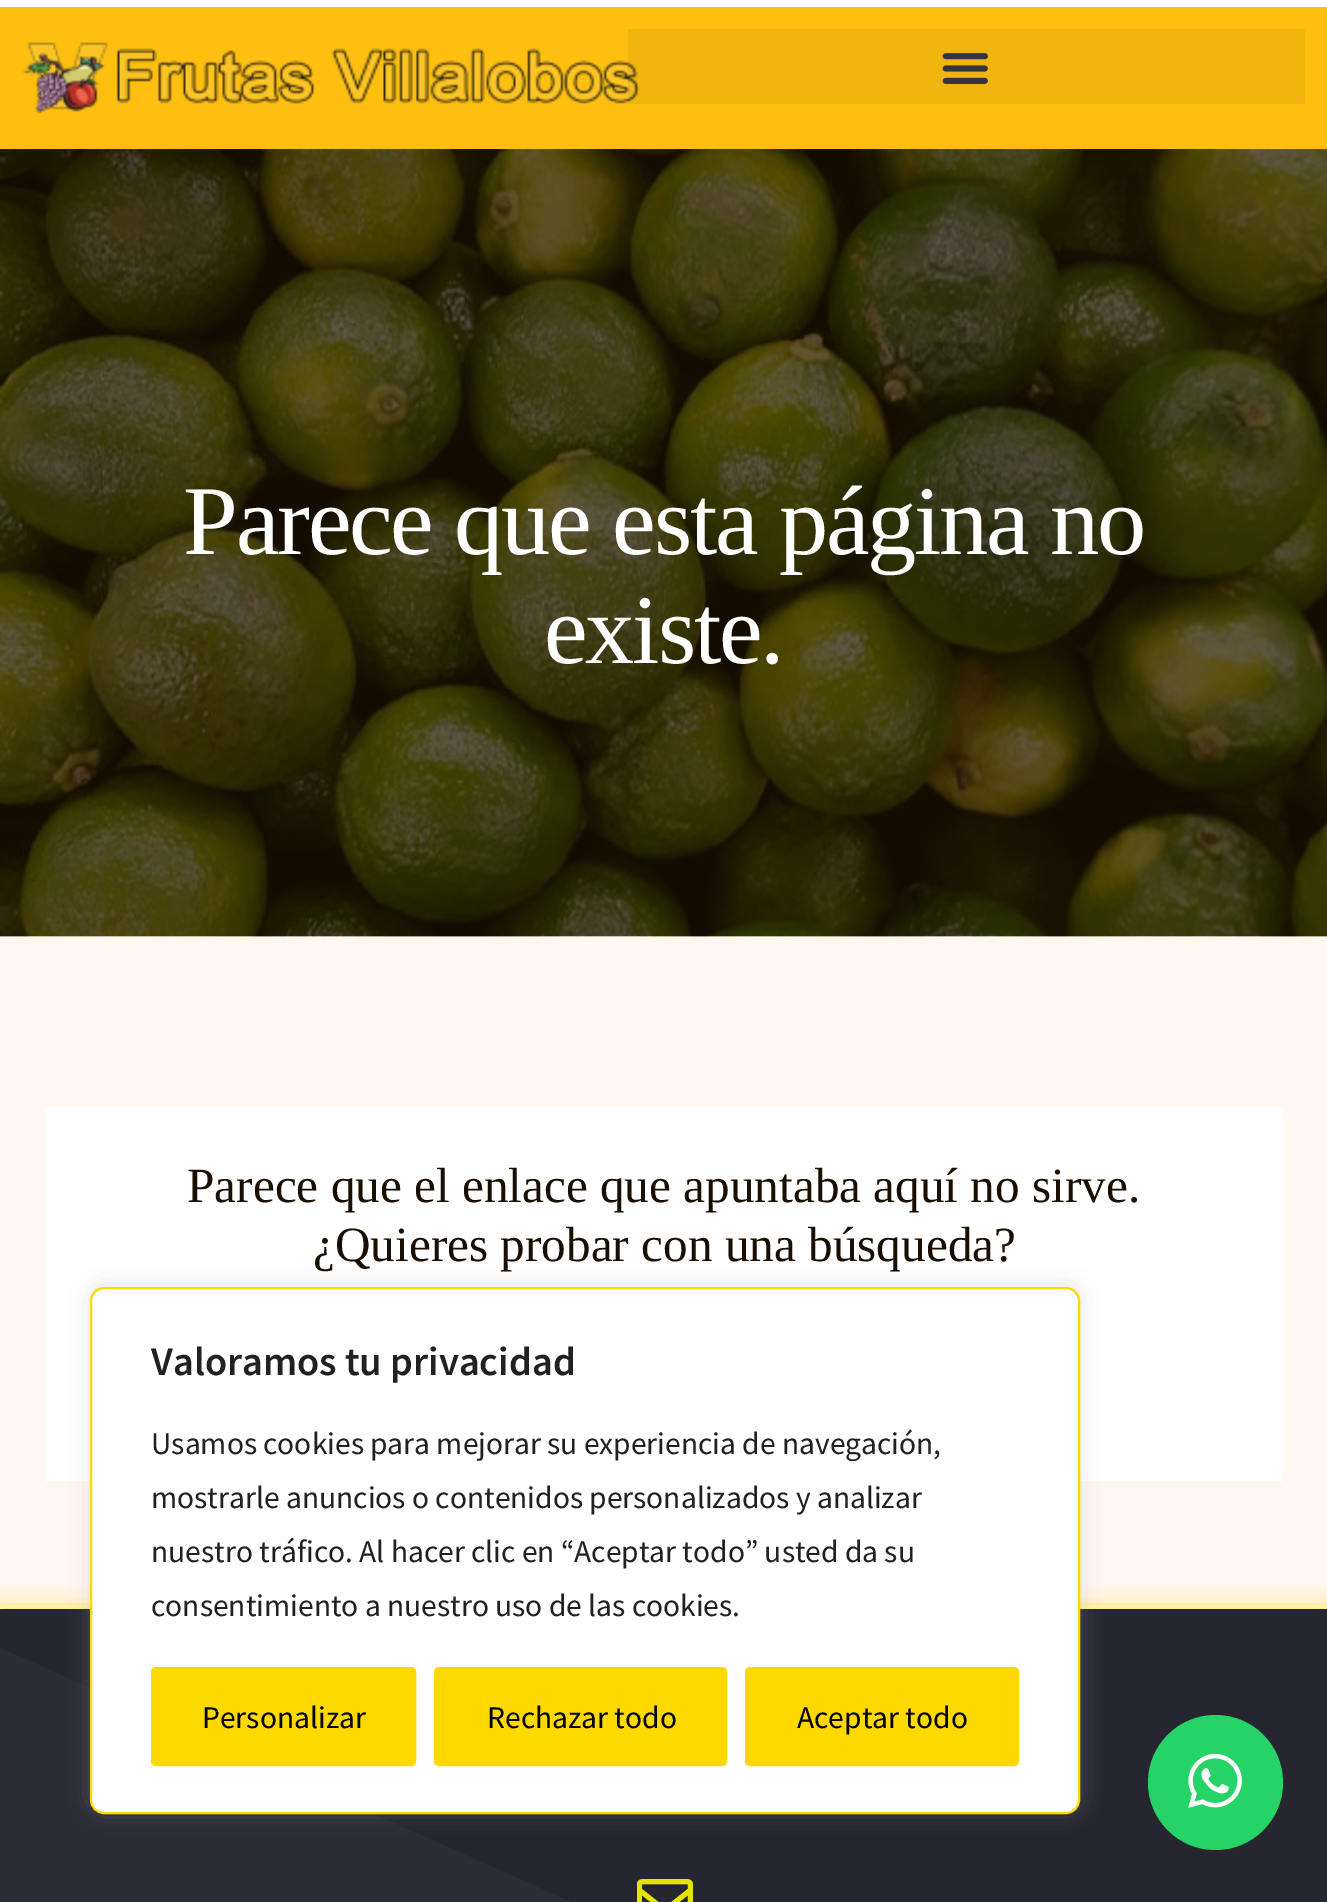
%!PS
<< /PageSize [1327 1902] /PageUsesTransparency true >> setpagedevice
/mt/moveto load def
/li/lineto load def
/cp/closepath load def
/fl/fill load def
/st/stroke load def
/gs/gsave load def
/gr/grestore load def
/lw/setlinewidth load def
/co { dup -16 bitshift 255 div exch dup -8 bitshift 255 and 255 div exch 255 and 255 div setrgbcolor } def
/fn { [ exch dup neg 0 0 3 -1 roll 0 0 ] selectfont } def
/tx { co fn moveto show } def
/bx { co rectfill } def
/al { dup .setfillconstantalpha .setstrokeconstantalpha } def
/ci { newpath 0 360 arc closepath } def
/rr { 5 dict begin { /r /h /w /y /x } { exch def } forall
  x r add y moveto x w add y 2 copy h add r arct x w add y h add x 1 index r arct
  x y h add x y r arct x y 2 copy exch w add exch r arct closepath end } def
/sh { 12 dict begin { /a /b /q /h /w /y /x } { exch def } forall gsave /was 0 def
  9 -2 -9 { dup b mul 4 div /e exch def 1 sub .425 mul 2.718 exch exp 1 add a .99 .min exch div /now exch def
    1 1 now sub 1 was sub div sub al /was now def
    w h .min e 2 mul add 0 gt { x e sub y e sub w e 2 mul add h e 2 mul add
      q e add b .6 mul add w h .min 2 div e add .min 0 .max rr fill } if } for grestore end } def
/im { 5 dict begin { /h /w /y /x /name } { exch def } forall
  gsave x y translate w h scale
  w h 8 [w 0 0 h 0 0] name (r) file false 3 colorimage grestore end } def
0 .pushpdf14devicefilter
0 1902 translate 1 -1 scale
4 setmiterlimit
0 0 1327 1902 16#FFF7F0 bx
0 0 1327 7 16#FFFFFF bx
0 7 1327 142 16#FEBF10 bx
(media/1.raw) 22 42 618 72 im
0.05 al
628 29 677 75 16#000000 bx
1 al
(media/2.raw) 942 53 46 31 im
(media/3.raw) 0 149 1327 788 im
45 1107 1238 374 16#FFFFFF bx
16#FED900 co
0 1611 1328 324 0 11 1 sh
0 1647 572 255 16#2B2C35 bx
16#252630 co
-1 1647 mt -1 1609 li 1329 1609 li 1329 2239 li cp fl
(media/4.raw) 637 1879 56 23 im
16#ACABAB co
90 1285 990 526 14 11 .3 sh
16#FFFFFF co
91 1288 988 525 13 rr gs fl gr
16#FED900 co
2 lw
st
153.5 1669.5 260 94 2.5 rr gs fl gr
5 lw
st
436.5 1669.5 288 94 2.5 rr gs fl gr
st
747.5 1669.5 269 94 2.5 rr gs fl gr
st
16#25D366 co
1215.5 1782.5 67.5 ci fl
(media/5.raw) 1188 1753 54 55 im
/LiberationSerif-Regular 98.5 fn
16#FFFFFF co
183 554 mt -2.25 0 (Parece que esta página no) ashow
544 663 mt -2.25 0 (existe.) ashow
(Parece que el enlace que apuntaba aquí no sirve.) 187 1202 /LiberationSerif-Regular 49.25 16#1A0E00 tx
(¿Quieres probar con una búsqueda?) 313 1261 /LiberationSerif-Regular 49.25 16#1A0E00 tx
(Valoramos tu privacidad) 151 1375 /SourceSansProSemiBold-SemiBold 40.5 16#212121 tx
(Usamos cookies para mejorar su experiencia de navegación,) 151 1454 /SourceSansPro-Regular 31.5 16#212121 tx
(mostrarle anuncios o contenidos personalizados y analizar) 151 1508 /SourceSansPro-Regular 31.5 16#212121 tx
(nuestro tráfico. Al hacer clic en “Aceptar todo” usted da su) 151 1562 /SourceSansPro-Regular 31.5 16#212121 tx
(consentimiento a nuestro uso de las cookies.) 151 1616 /SourceSansPro-Regular 31.5 16#212121 tx
(Personalizar) 202 1728 /SourceSansPro-Regular 31.5 16#000000 tx
(Rechazar todo) 487 1728 /SourceSansPro-Regular 31.5 16#000000 tx
(Aceptar todo) 797 1728 /SourceSansPro-Regular 31.5 16#000000 tx
.poppdf14devicefilter showpage
